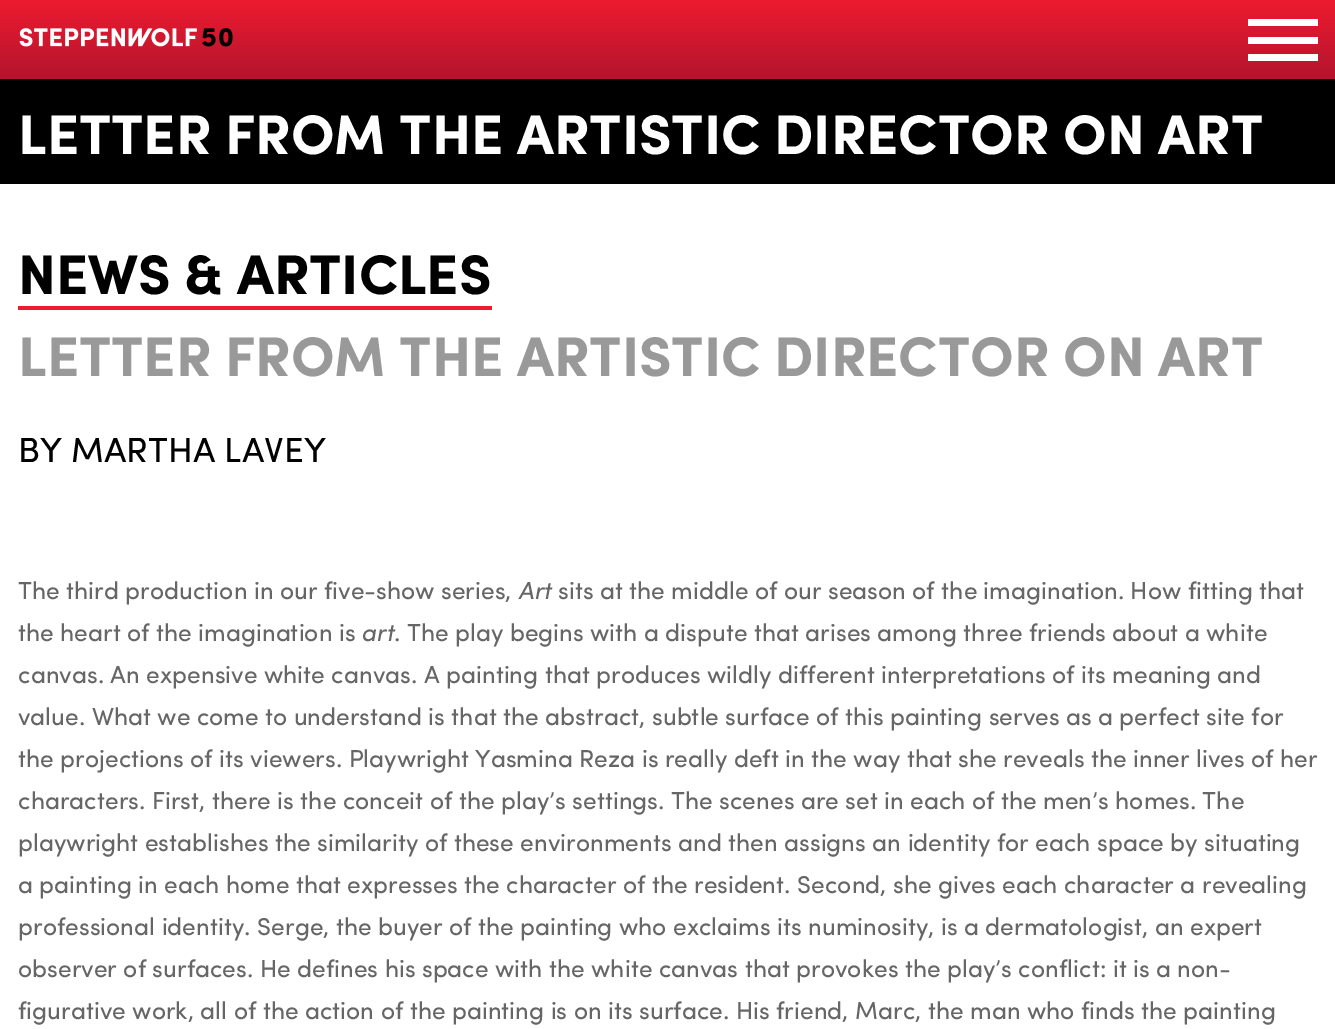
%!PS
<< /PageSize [1335 1029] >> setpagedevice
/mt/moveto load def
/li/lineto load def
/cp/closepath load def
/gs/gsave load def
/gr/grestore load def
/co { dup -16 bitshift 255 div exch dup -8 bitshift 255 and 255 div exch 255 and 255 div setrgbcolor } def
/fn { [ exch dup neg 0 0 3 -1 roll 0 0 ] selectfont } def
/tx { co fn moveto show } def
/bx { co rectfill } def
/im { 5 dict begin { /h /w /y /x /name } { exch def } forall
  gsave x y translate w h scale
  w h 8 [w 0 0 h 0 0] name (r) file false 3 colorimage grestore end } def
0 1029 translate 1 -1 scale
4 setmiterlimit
0 0 1335 1029 16#FFFFFF bx
gs 0 0 mt 1335 0 li 1335 79 li 0 79 li cp clip newpath
<< /ShadingType 2 /ColorSpace /DeviceRGB /Coords [668 0 668 79] /Extend [true true] /Function << /FunctionType 2 /Domain [0 1] /C0 [.929 .106 .184] /C1 [.702 .078 .18] /N 1 >> >> shfill gr
(media/1.raw) 19 28 214 19 im
1248 37 70 7 16#FFFFFF bx
1248 19 70 7 16#FFFFFF bx
1248 54 70 7 16#FFFFFF bx
0 79 1335 105 16#000000 bx
18 306 474 4 16#EC1B30 bx
(LETTER FROM THE ARTISTIC DIRECTOR ON ART) 18 154 /Sofia-Bold 56 16#FFFFFF tx
(NEWS & ARTICLES) 18 294 /Sofia-Bold 56 16#000000 tx
(LETTER FROM THE ARTISTIC DIRECTOR ON ART) 18 376 /Sofia-Bold 56 16#999999 tx
(BY MARTHA LAVEY) 18 462 /Sofia-Regular 35 16#000000 tx
(The third production in our five-show series,) 18 599 /Sofia-Regular 24.5 16#666666 tx
(Art) 518 599 /Sofia-Italic 24.5 16#666666 tx
(sits at the middle of our season of the imagination. How fitting that) 558 599 /Sofia-Regular 24.5 16#666666 tx
(the heart of the imagination is) 18 641 /Sofia-Regular 24.5 16#666666 tx
(art) 361 641 /Sofia-Italic 24.5 16#666666 tx
(. The play begins with a dispute that arises among three friends about a white) 394 641 /Sofia-Regular 24.5 16#666666 tx
(canvas. An expensive white canvas. A painting that produces wildly different interpretations of its meaning and) 18 683 /Sofia-Regular 24.5 16#666666 tx
(value. What we come to understand is that the abstract, subtle surface of this painting serves as a perfect site for) 18 725 /Sofia-Regular 24.5 16#666666 tx
(the projections of its viewers. Playwright Yasmina Reza is really deft in the way that she reveals the inner lives of her) 18 767 /Sofia-Regular 24.5 16#666666 tx
(characters. First, there is the conceit of the play’s settings. The scenes are set in each of the men’s homes. The) 18 809 /Sofia-Regular 24.5 16#666666 tx
(playwright establishes the similarity of these environments and then assigns an identity for each space by situating) 18 851 /Sofia-Regular 24.5 16#666666 tx
(a painting in each home that expresses the character of the resident. Second, she gives each character a revealing) 18 893 /Sofia-Regular 24.5 16#666666 tx
(professional identity. Serge, the buyer of the painting who exclaims its numinosity, is a dermatologist, an expert) 18 935 /Sofia-Regular 24.5 16#666666 tx
(observer of surfaces. He defines his space with the white canvas that provokes the play’s conflict: it is a non-) 18 977 /Sofia-Regular 24.5 16#666666 tx
(figurative work, all of the action of the painting is on its surface. His friend, Marc, the man who finds the painting) 18 1019 /Sofia-Regular 24.5 16#666666 tx
showpage
